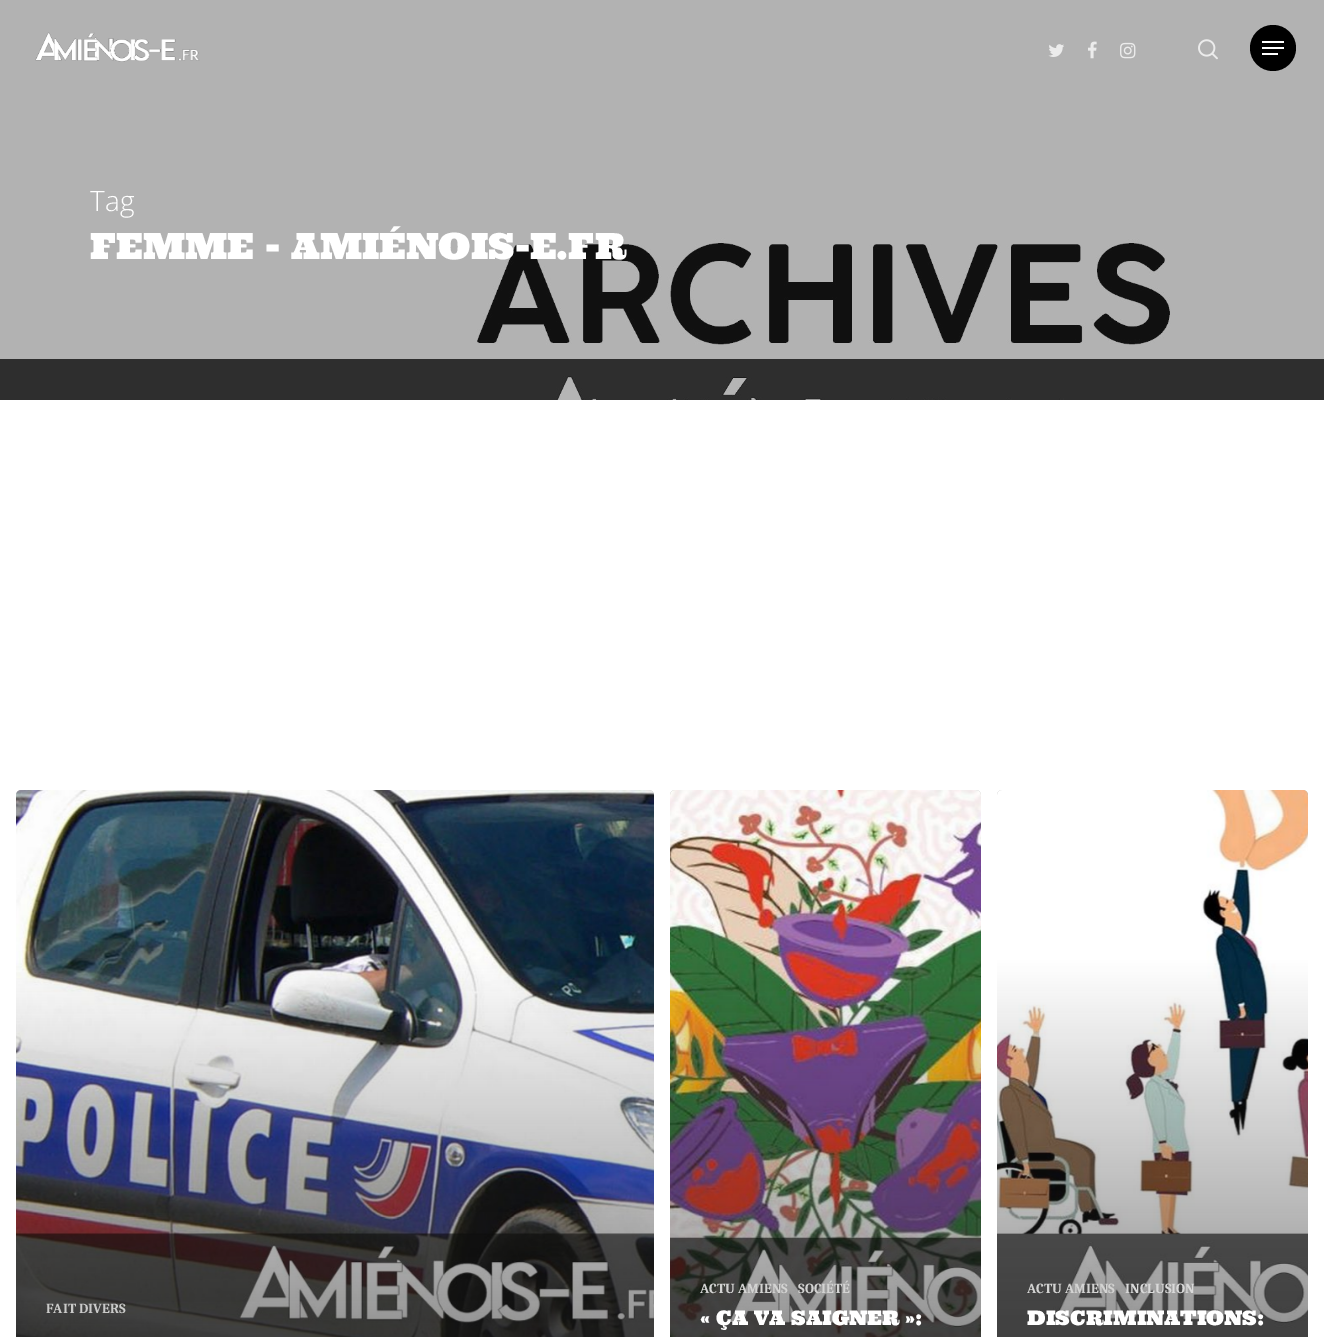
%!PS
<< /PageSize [1324 1337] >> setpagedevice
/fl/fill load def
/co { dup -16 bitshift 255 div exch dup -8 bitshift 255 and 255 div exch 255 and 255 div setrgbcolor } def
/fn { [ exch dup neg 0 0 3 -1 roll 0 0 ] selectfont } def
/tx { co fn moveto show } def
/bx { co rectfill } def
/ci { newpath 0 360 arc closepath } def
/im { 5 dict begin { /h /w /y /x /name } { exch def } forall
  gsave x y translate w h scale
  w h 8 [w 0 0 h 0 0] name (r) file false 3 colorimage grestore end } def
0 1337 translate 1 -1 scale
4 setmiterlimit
0 0 1324 1337 16#FFFFFF bx
(media/6.raw) 0 0 1324 400 im
(media/1.raw) 35 32 165 30 im
(media/2.raw) 1048 44 16 13 im
(media/3.raw) 1088 41 9 18 im
(media/4.raw) 1120 42 16 17 im
(media/5.raw) 1198 39 20 21 im
16#000000 co
1273 48 23 ci fl
1262 41 22 2 16#FFFFFF bx
1262 53 16 2 16#FFFFFF bx
1262 47 22 2 16#FFFFFF bx
(media/7.raw) 16 790 638 547 im
(media/8.raw) 670 790 311 547 im
(media/9.raw) 997 790 311 547 im
(Tag) 90 211 /OpenSans-Light 28 16#FFFFFF tx
(FEMME - AMIÉNOIS-E.FR) 90 259 /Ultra-Regular 36 16#FFFFFF tx
(FAIT DIVERS) 46 1313 /Caladea-Bold 14 16#CACAC9 tx
(ACTU AMIENS) 700 1293 /Caladea-Bold 14 16#D3D3D2 tx
(SOCIÉTÉ) 798 1293 /Caladea-Bold 14 16#D3D3D2 tx
(« ÇA VA SAIGNER »:) 700 1325 /Ultra-Regular 20 16#FFFFFF tx
(ACTU AMIENS) 1027 1293 /Caladea-Bold 14 16#D3D3D2 tx
(INCLUSION) 1125 1293 /Caladea-Bold 14 16#D9D9D9 tx
(DISCRIMINATIONS:) 1027 1325 /Ultra-Regular 20 16#FFFFFF tx
showpage
